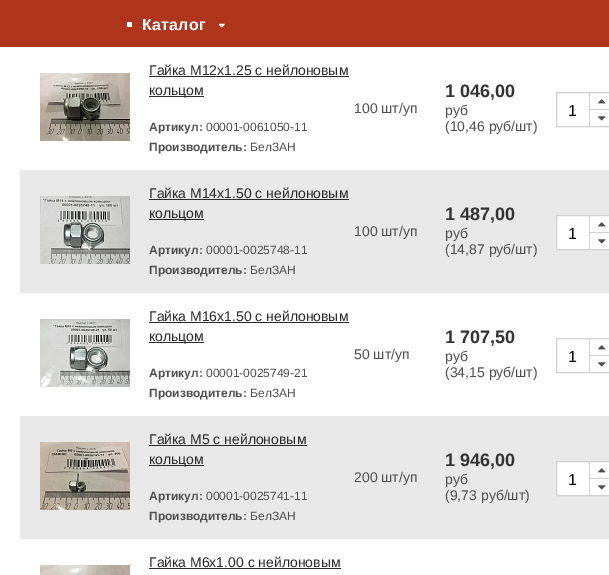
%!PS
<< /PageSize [609 575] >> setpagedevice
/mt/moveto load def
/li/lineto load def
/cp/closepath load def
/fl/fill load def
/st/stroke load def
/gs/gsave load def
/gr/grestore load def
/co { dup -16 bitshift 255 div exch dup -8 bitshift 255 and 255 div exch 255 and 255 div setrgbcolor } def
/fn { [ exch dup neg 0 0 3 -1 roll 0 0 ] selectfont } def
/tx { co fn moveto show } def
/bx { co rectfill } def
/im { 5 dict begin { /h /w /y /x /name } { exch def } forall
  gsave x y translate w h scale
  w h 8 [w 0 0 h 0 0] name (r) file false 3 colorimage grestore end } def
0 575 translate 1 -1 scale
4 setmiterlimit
0 0 609 575 16#FFFFFF bx
0 0 609 47 16#AF361D bx
127 22 5 5 16#FFFFFF bx
(media/1.raw) 218 23 7 5 im
(media/2.raw) 40 73 90 68 im
149 76 200 1 16#2A2A2A bx
149 96 55 1 16#2A2A2A bx
16#D1D1D1 co
556.5 92.5 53 34 rectstroke
589 93 1 34 16#D1D1D1 bx
590 109 19 1 16#D1D1D1 bx
(media/3.raw) 598 99 8 5 im
(media/4.raw) 598 116 8 5 im
20 170 589 123 16#E8E8E9 bx
(media/5.raw) 40 196 90 68 im
149 199 200 1 16#2A2A2A bx
149 219 55 1 16#2A2A2A bx
16#FFFFFF co
556.5 215.5 mt 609.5 215.5 li 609.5 249.5 li 556.5 249.5 li cp gs fl gr
16#D1D1D1 co
st
589 216 1 34 16#D1D1D1 bx
590 232 19 1 16#D1D1D1 bx
(media/3.raw) 598 222 8 5 im
(media/4.raw) 598 239 8 5 im
(media/6.raw) 40 319 90 68 im
149 322 200 1 16#2A2A2A bx
149 342 55 1 16#2A2A2A bx
16#D1D1D1 co
556.5 338.5 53 34 rectstroke
589 339 1 34 16#D1D1D1 bx
590 355 19 1 16#D1D1D1 bx
(media/3.raw) 598 345 8 5 im
(media/4.raw) 598 362 8 5 im
20 416 589 123 16#E8E8E9 bx
(media/7.raw) 40 442 90 68 im
149 445 158 1 16#2A2A2A bx
149 465 55 1 16#2A2A2A bx
16#FFFFFF co
556.5 461.5 mt 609.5 461.5 li 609.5 495.5 li 556.5 495.5 li cp gs fl gr
16#D1D1D1 co
st
589 462 1 34 16#D1D1D1 bx
590 478 19 1 16#D1D1D1 bx
(media/3.raw) 598 468 8 5 im
(media/4.raw) 598 485 8 5 im
149 568 192 1 16#2A2A2A bx
(media/8.raw) 40 565 90 10 im
/LiberationSans-Bold 16 fn
16#FFFFFF co
142 30 mt .25 0 (Каталог) ashow
(Гайка М12х1.25 с нейлоновым) 149 75 /LiberationSans-Regular 14 16#2A2A2A tx
(кольцом) 149 95 /LiberationSans-Regular 14 16#2A2A2A tx
(Артикул:) 149 131 /LiberationSans-Bold 12 16#4F4F4F tx
(00001-0061050-11) 206 131 /LiberationSans-Regular 12 16#4F4F4F tx
(Производитель:) 149 151 /LiberationSans-Bold 12 16#4F4F4F tx
(БелЗАН) 250 151 /LiberationSans-Regular 12 16#4F4F4F tx
(100 шт/уп) 354 113 /LiberationSans-Regular 14 16#4F4F4F tx
(1 046,00) 445 97 /LiberationSans-Bold 18 16#333333 tx
(руб) 445 115 /LiberationSans-Regular 14 16#4F4F4F tx
(\(10,46 руб/шт\)) 445 131 /LiberationSans-Regular 14 16#4F4F4F tx
(1) 568 116 /LiberationSans-Regular 16 16#000000 tx
(Гайка М14х1.50 с нейлоновым) 149 198 /LiberationSans-Regular 14 16#2A2A2A tx
(кольцом) 149 218 /LiberationSans-Regular 14 16#2A2A2A tx
(Артикул:) 149 254 /LiberationSans-Bold 12 16#4F4F4F tx
(00001-0025748-11) 206 254 /LiberationSans-Regular 12 16#4F4F4F tx
(Производитель:) 149 274 /LiberationSans-Bold 12 16#4F4F4F tx
(БелЗАН) 250 274 /LiberationSans-Regular 12 16#4F4F4F tx
(100 шт/уп) 354 236 /LiberationSans-Regular 14 16#4F4F4F tx
(1 487,00) 445 220 /LiberationSans-Bold 18 16#333333 tx
(руб) 445 238 /LiberationSans-Regular 14 16#4F4F4F tx
(\(14,87 руб/шт\)) 445 254 /LiberationSans-Regular 14 16#4F4F4F tx
(1) 568 239 /LiberationSans-Regular 16 16#000000 tx
(Гайка М16х1.50 с нейлоновым) 149 321 /LiberationSans-Regular 14 16#2A2A2A tx
(кольцом) 149 341 /LiberationSans-Regular 14 16#2A2A2A tx
(Артикул:) 149 377 /LiberationSans-Bold 12 16#4F4F4F tx
(00001-0025749-21) 206 377 /LiberationSans-Regular 12 16#4F4F4F tx
(Производитель:) 149 397 /LiberationSans-Bold 12 16#4F4F4F tx
(БелЗАН) 250 397 /LiberationSans-Regular 12 16#4F4F4F tx
(50 шт/уп) 354 359 /LiberationSans-Regular 14 16#4F4F4F tx
(1 707,50) 445 343 /LiberationSans-Bold 18 16#333333 tx
(руб) 445 361 /LiberationSans-Regular 14 16#4F4F4F tx
(\(34,15 руб/шт\)) 445 377 /LiberationSans-Regular 14 16#4F4F4F tx
(1) 568 362 /LiberationSans-Regular 16 16#000000 tx
(Гайка М5 с нейлоновым) 149 444 /LiberationSans-Regular 14 16#2A2A2A tx
(кольцом) 149 464 /LiberationSans-Regular 14 16#2A2A2A tx
(Артикул:) 149 500 /LiberationSans-Bold 12 16#4F4F4F tx
(00001-0025741-11) 206 500 /LiberationSans-Regular 12 16#4F4F4F tx
(Производитель:) 149 520 /LiberationSans-Bold 12 16#4F4F4F tx
(БелЗАН) 250 520 /LiberationSans-Regular 12 16#4F4F4F tx
(200 шт/уп) 354 482 /LiberationSans-Regular 14 16#4F4F4F tx
(1 946,00) 445 466 /LiberationSans-Bold 18 16#333333 tx
(руб) 445 484 /LiberationSans-Regular 14 16#4F4F4F tx
(\(9,73 руб/шт\)) 445 500 /LiberationSans-Regular 14 16#4F4F4F tx
(1) 568 485 /LiberationSans-Regular 16 16#000000 tx
(Гайка М6х1.00 с нейлоновым) 149 567 /LiberationSans-Regular 14 16#2A2A2A tx
showpage
